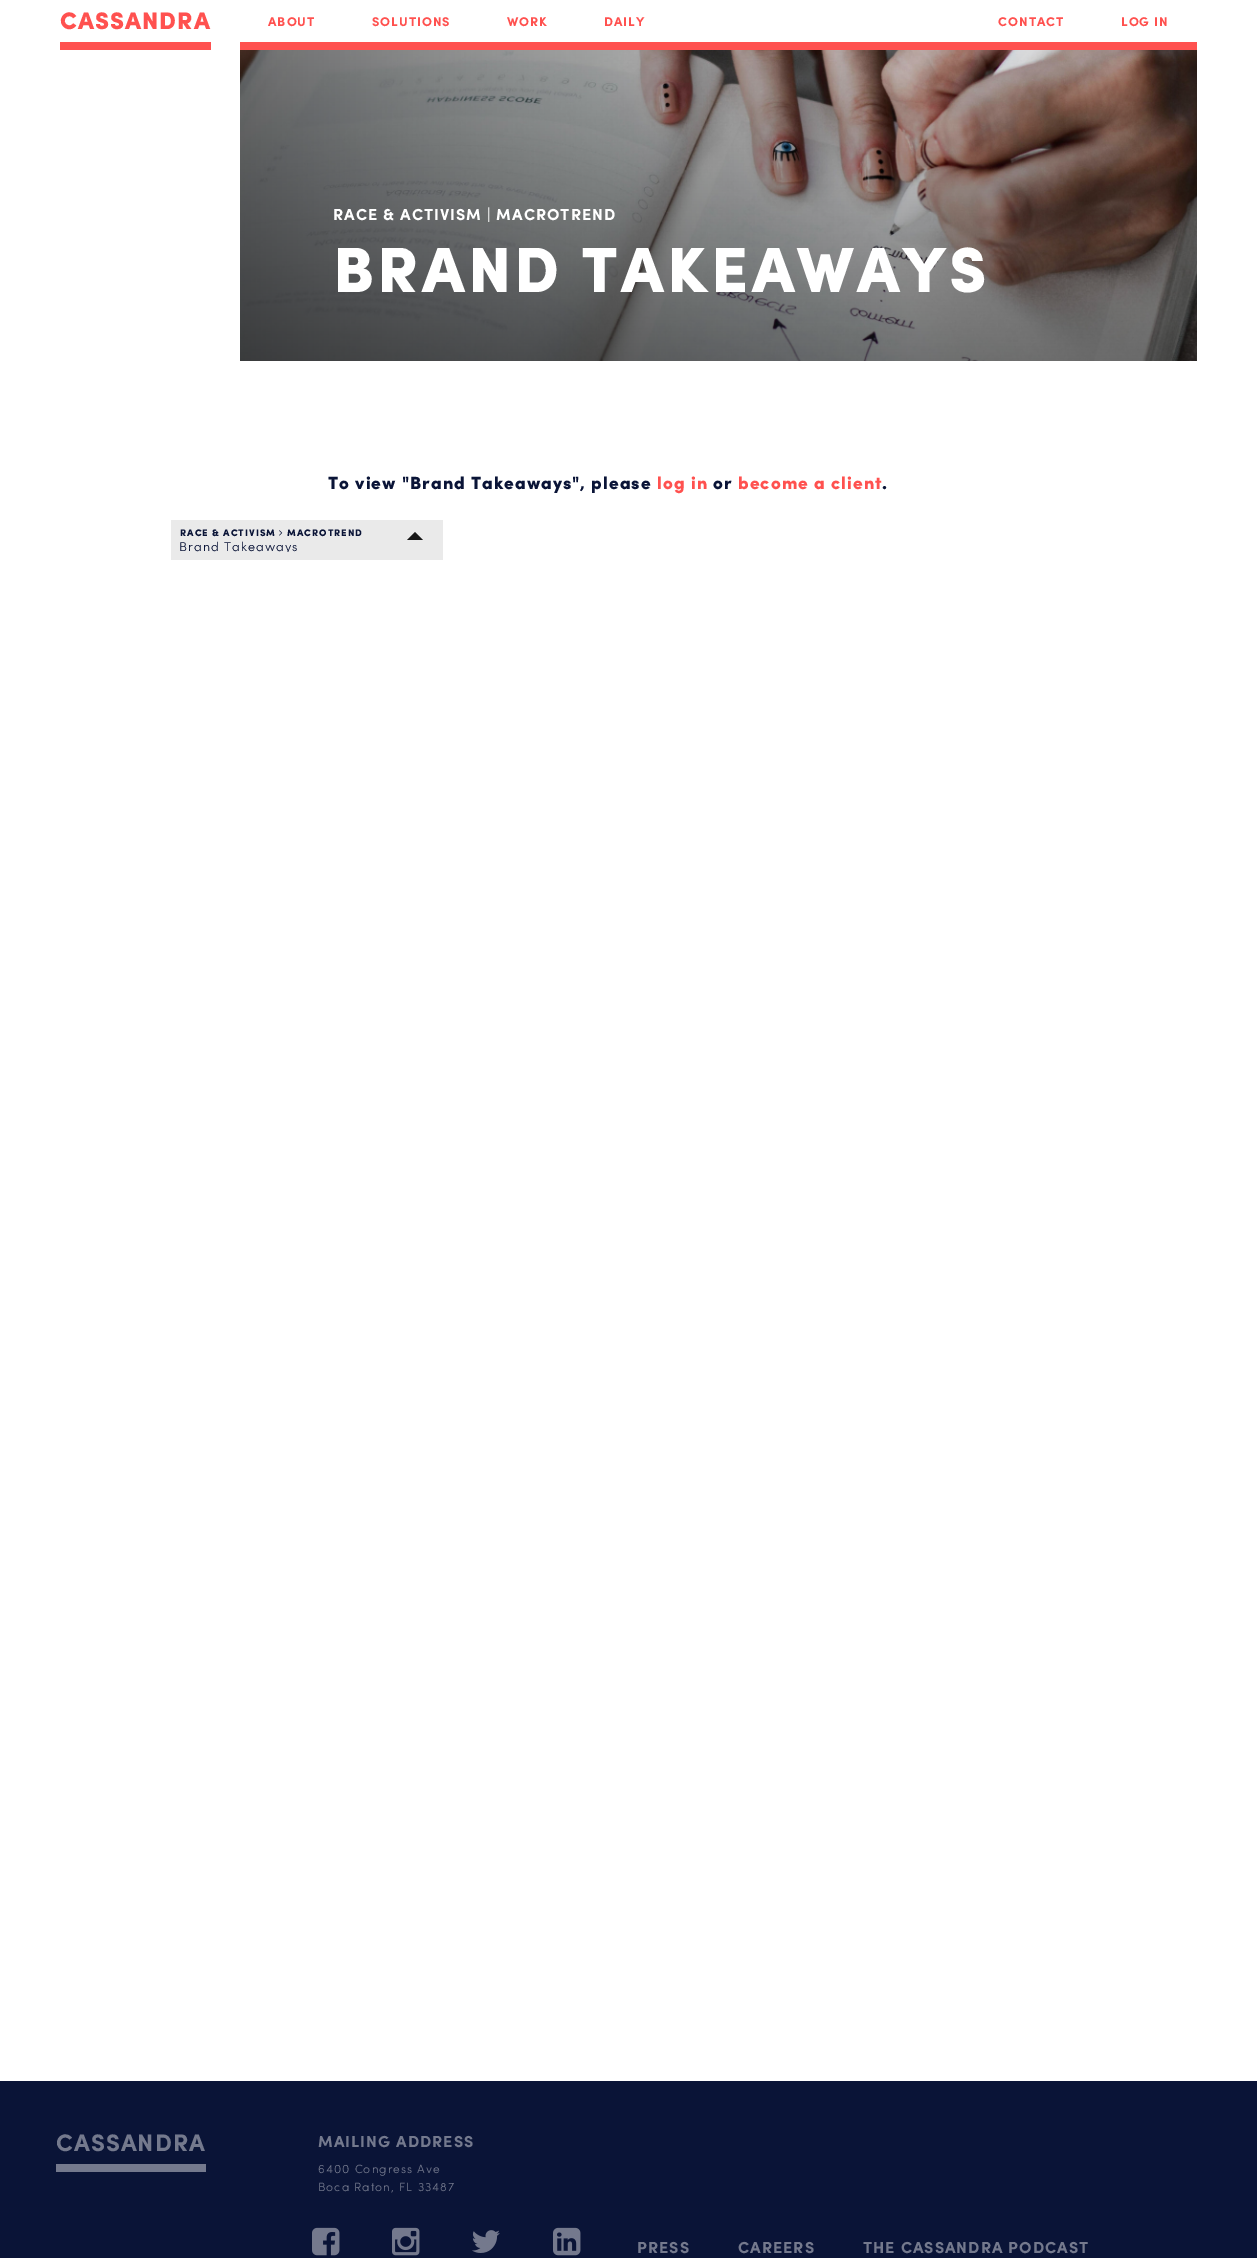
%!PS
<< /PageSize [1257 2258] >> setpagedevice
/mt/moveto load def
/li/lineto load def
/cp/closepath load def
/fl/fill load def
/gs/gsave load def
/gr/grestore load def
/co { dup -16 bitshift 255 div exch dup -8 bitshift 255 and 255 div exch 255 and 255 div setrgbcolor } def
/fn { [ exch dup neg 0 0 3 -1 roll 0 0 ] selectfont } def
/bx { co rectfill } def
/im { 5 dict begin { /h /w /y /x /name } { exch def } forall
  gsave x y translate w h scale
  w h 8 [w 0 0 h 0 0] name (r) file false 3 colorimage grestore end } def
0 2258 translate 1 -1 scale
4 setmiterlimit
0 0 1257 2258 16#FFFFFF bx
60 42 151 8 16#FF514F bx
240 42 957 8 16#FF514F bx
(media/1.raw) 240 50 957 311 im
171 520 272 40 16#EAEAEA bx
(media/2.raw) 279 530 4 6 im
16#171717 co
423 540 mt 407 540 li 415 532 li cp fl
0 2081 1257 177 16#0A1437 bx
56 2164 150 8 16#74798D bx
(media/3.raw) 312 2227 28 29 im
(media/4.raw) 392 2227 28 29 im
(media/5.raw) 472 2230 28 23 im
(media/6.raw) 553 2227 28 29 im
/Sofia-Black 24 fn
16#FF514F co
60 29 mt 1 0 (CASSANDRA) ashow
/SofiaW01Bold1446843-Bold 12.75 fn
268 26 mt 1 0 (ABOUT) ashow
372 26 mt 1 0 (SOLUTIONS) ashow
507 26 mt 1 0 (WORK) ashow
604 26 mt 1 0 (DAILY) ashow
998 26 mt 1 0 (CONTACT) ashow
1121 26 mt 1 0 (LOG IN) ashow
/SofiaW01Bold1446843-Bold 16 fn
16#FFFFFF co
333 220 mt 1 0 (RACE & ACTIVISM | MACROTREND) ashow
/Sofia-Black 64 fn
333 292 mt 3.25 0 (BRAND TAKEAWAYS) ashow
/Sofia-Black 17.6 fn
16#0A1437 co
328 489 mt 1 0 (To view "Brand Takeaways", please) ashow
16#FF514F co
657 489 mt 1 0 (log in) ashow
16#0A1437 co
713 489 mt 1 0 (or) ashow
16#FF514F co
738 489 mt 1 0 (become a client) ashow
16#0A1437 co
882 489 mt 1 0 (.) ashow
/Sofia-Black 9.6 fn
180 536 mt 1 0 (RACE & ACTIVISM) ashow
287 536 mt 1 0 (MACROTREND) ashow
gs
179 540 224 12 rectclip
/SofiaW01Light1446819-Light 12.75 fn
179 551 mt 1 0 (Brand Takeaways) ashow
gr
/SofiaW01Bold1446843-Bold 24 fn
16#74798D co
56 2151 mt 1 0 (CASSANDRA) ashow
/SofiaW01Bold1446843-Bold 16 fn
318 2147 mt 1 0 (MAILING ADDRESS) ashow
/SofiaW01Light1446819-Light 12 fn
318 2173 mt 1 0 (6400 Congress Ave) ashow
318 2191 mt 1 0 (Boca Raton, FL 33487) ashow
/SofiaW01Bold1446843-Bold 16 fn
637 2253 mt 1 0 (PRESS) ashow
738 2253 mt 1 0 (CAREERS) ashow
863 2253 mt 1 0 (THE CASSANDRA PODCAST) ashow
showpage
